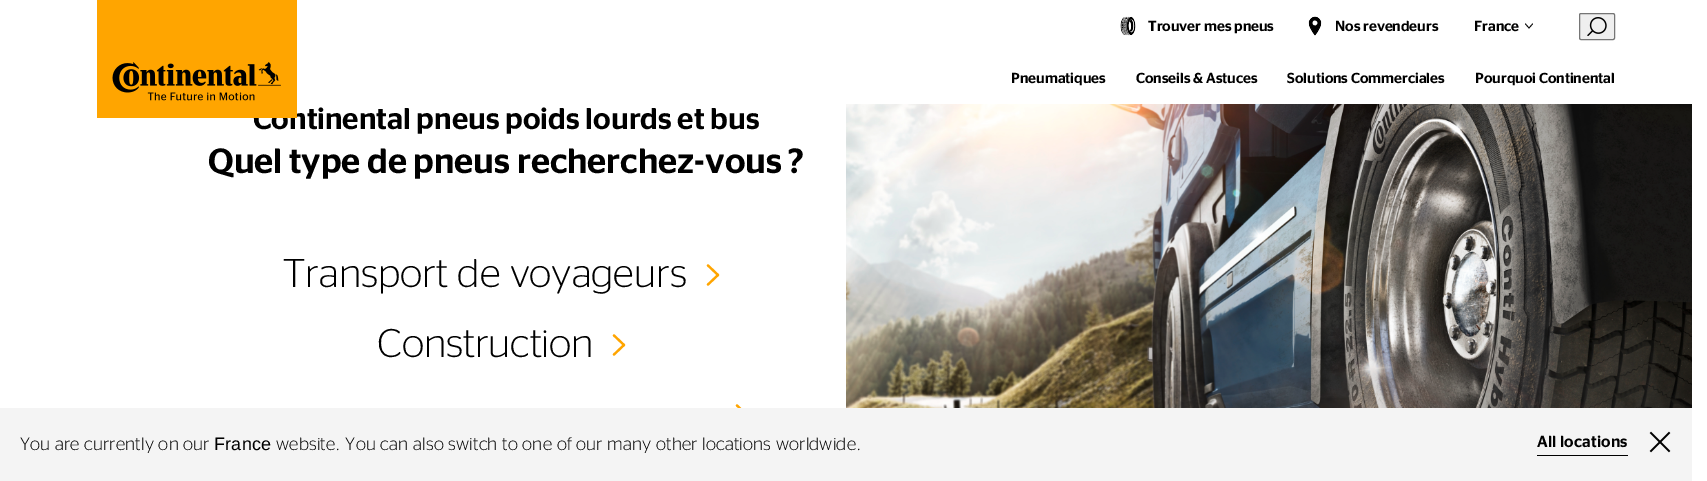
%!PS
<< /PageSize [1707 481] >> setpagedevice
/mt/moveto load def
/li/lineto load def
/fl/fill load def
/st/stroke load def
/gs/gsave load def
/gr/grestore load def
/lw/setlinewidth load def
/co { dup -16 bitshift 255 div exch dup -8 bitshift 255 and 255 div exch 255 and 255 div setrgbcolor } def
/fn { [ exch dup neg 0 0 3 -1 roll 0 0 ] selectfont } def
/tx { co fn moveto show } def
/bx { co rectfill } def
/rr { 5 dict begin { /r /h /w /y /x } { exch def } forall
  x r add y moveto x w add y 2 copy h add r arct x w add y h add x 1 index r arct
  x y h add x y r arct x y 2 copy exch w add exch r arct closepath end } def
/im { 5 dict begin { /h /w /y /x /name } { exch def } forall
  gsave x y translate w h scale
  w h 8 [w 0 0 h 0 0] name (r) file false 3 colorimage grestore end } def
0 481 translate 1 -1 scale
4 setmiterlimit
0 0 1707 481 16#FFFFFF bx
97 0 200 62 16#FFA500 bx
(media/2.raw) 1120 16 16 20 im
(media/3.raw) 1308 16 14 20 im
16#000000 co
.8 lw
1 setlinecap
1 setlinejoin
1525.5 24 mt 1529 28 li 1532.5 24 li st
16#EFEFEF co
1579.5 13.5 35 26 1.5 rr gs fl gr
16#767676 co
1 lw
0 setlinecap
0 setlinejoin
st
(media/4.raw) 1587 17 20 19 im
16#FFA500 co
2.2 lw
1 setlinecap
1 setlinejoin
708 284.5 mt 718 275 li 708 265.5 li st
614 354.5 mt 624 345 li 614 335.5 li st
737 424.5 mt 747 415 li 737 405.5 li st
(media/5.raw) 846 104 846 304 im
0 408 1692 73 16#F4F4F4 bx
1537 455 91 1 16#000000 bx
(media/6.raw) 1649 431 22 22 im
(Trouver mes pneus) 1148 31 /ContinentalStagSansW-Medium 14.5 16#000000 tx
(Nos revendeurs) 1335 31 /ContinentalStagSansW-Medium 14.5 16#000000 tx
(France) 1474 31 /ContinentalStagSansW-Medium 14.5 16#000000 tx
(Pneumatiques) 1011 83 /ContinentalStagSansW-Medium 14.5 16#000000 tx
(Conseils & Astuces) 1136 83 /ContinentalStagSansW-Medium 14.5 16#000000 tx
(Solutions Commerciales) 1287 83 /ContinentalStagSansW-Medium 14.5 16#000000 tx
(Pourquoi Continental) 1475 83 /ContinentalStagSansW-Medium 14.5 16#000000 tx
(Continental pneus poids lourds et bus) 253 129 /ContinentalStagSansW-Medium 30 16#000000 tx
(media/1.raw) 97 62 200 56 im
(Quel type de pneus recherchez-vous ?) 208 173 /ContinentalStagSansW-Medium 35 16#000000 tx
(Transport de voyageurs) 283 287 /ContinentalStagSansW-Light 40 16#000000 tx
(Construction) 377 357 /ContinentalStagSansW-Light 40 16#000000 tx
/ContinentalStagSansW-Light 18 fn
20 450 mt .2 0 (You are currently on our) ashow
/LiberationSans-Regular 18 fn
214 450 mt .2 0 (France) ashow
/ContinentalStagSansW-Light 18 fn
276 450 mt .2 0 (website. You can also switch to one of our many other locations worldwide.) ashow
/ContinentalStagSansW-Medium 16 fn
1537 447 mt .2 0 (All locations) ashow
showpage
